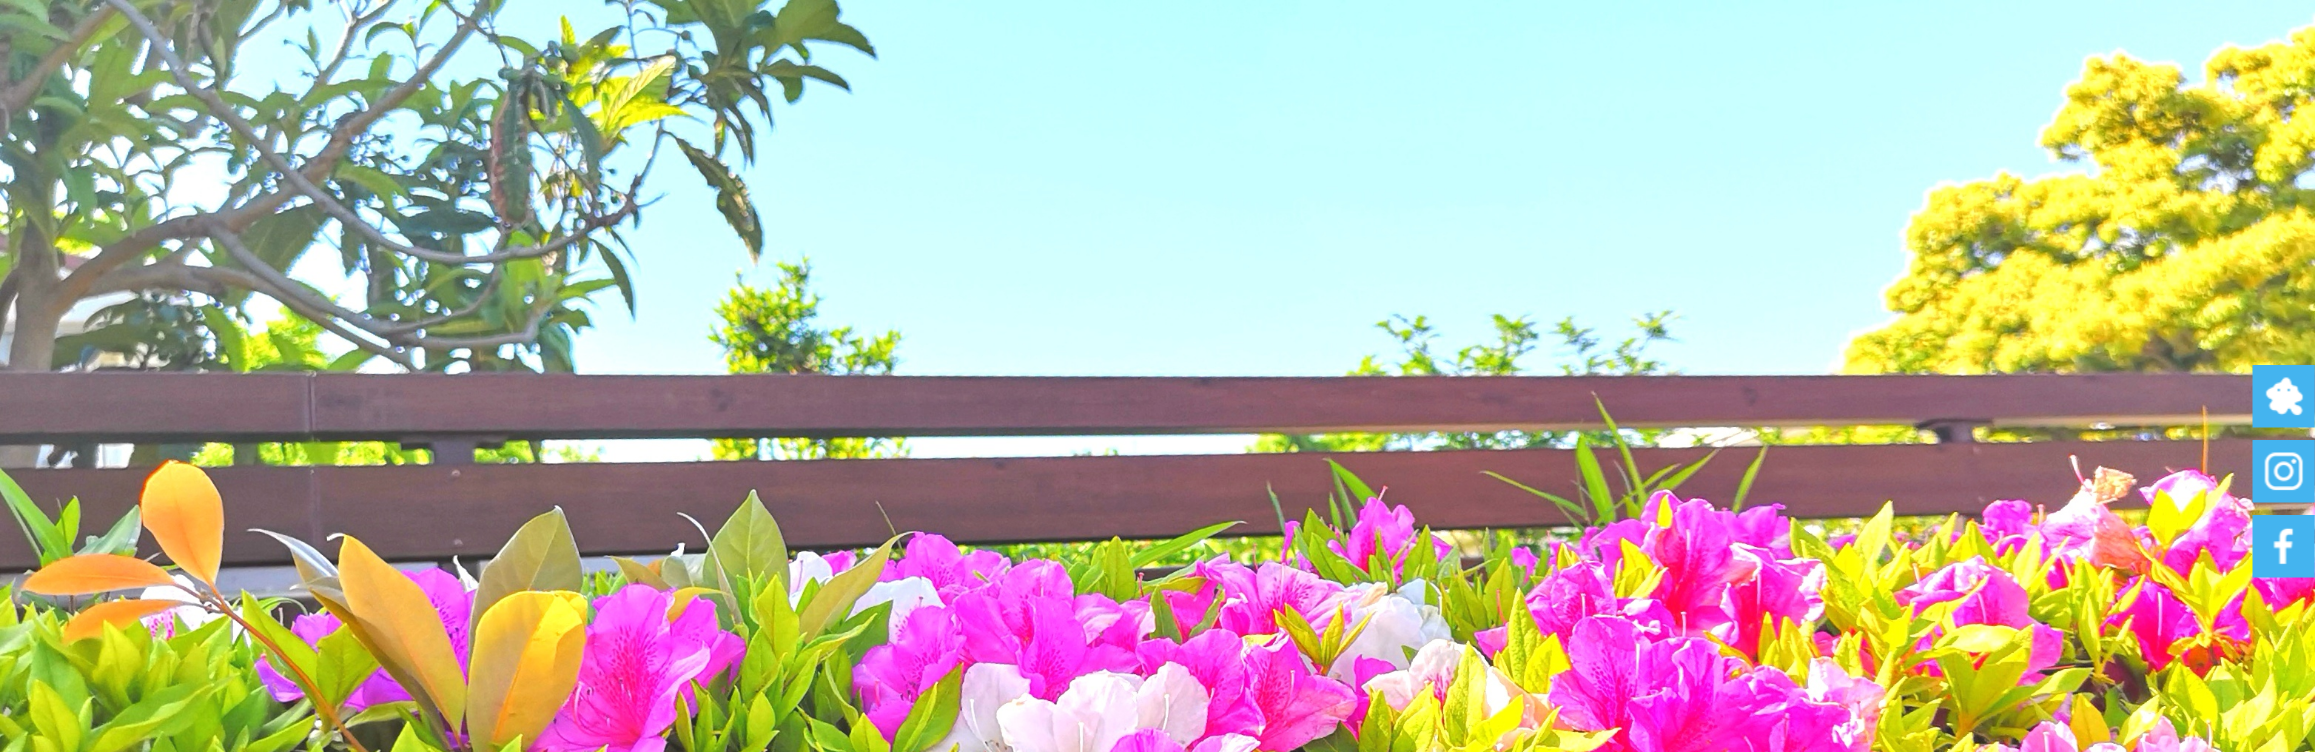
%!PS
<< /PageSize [2315 752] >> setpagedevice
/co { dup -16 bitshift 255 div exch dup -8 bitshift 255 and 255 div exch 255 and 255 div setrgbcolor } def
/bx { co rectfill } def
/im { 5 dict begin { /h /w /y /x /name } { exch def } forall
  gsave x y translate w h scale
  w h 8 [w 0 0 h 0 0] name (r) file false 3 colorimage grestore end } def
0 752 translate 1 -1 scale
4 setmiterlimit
0 0 2315 752 16#FFFFFF bx
(media/1.raw) 0 0 2315 752 im
(media/2.raw) 2252 365 63 63 im
(media/3.raw) 2252 440 63 63 im
(media/4.raw) 2252 515 63 63 im
showpage
